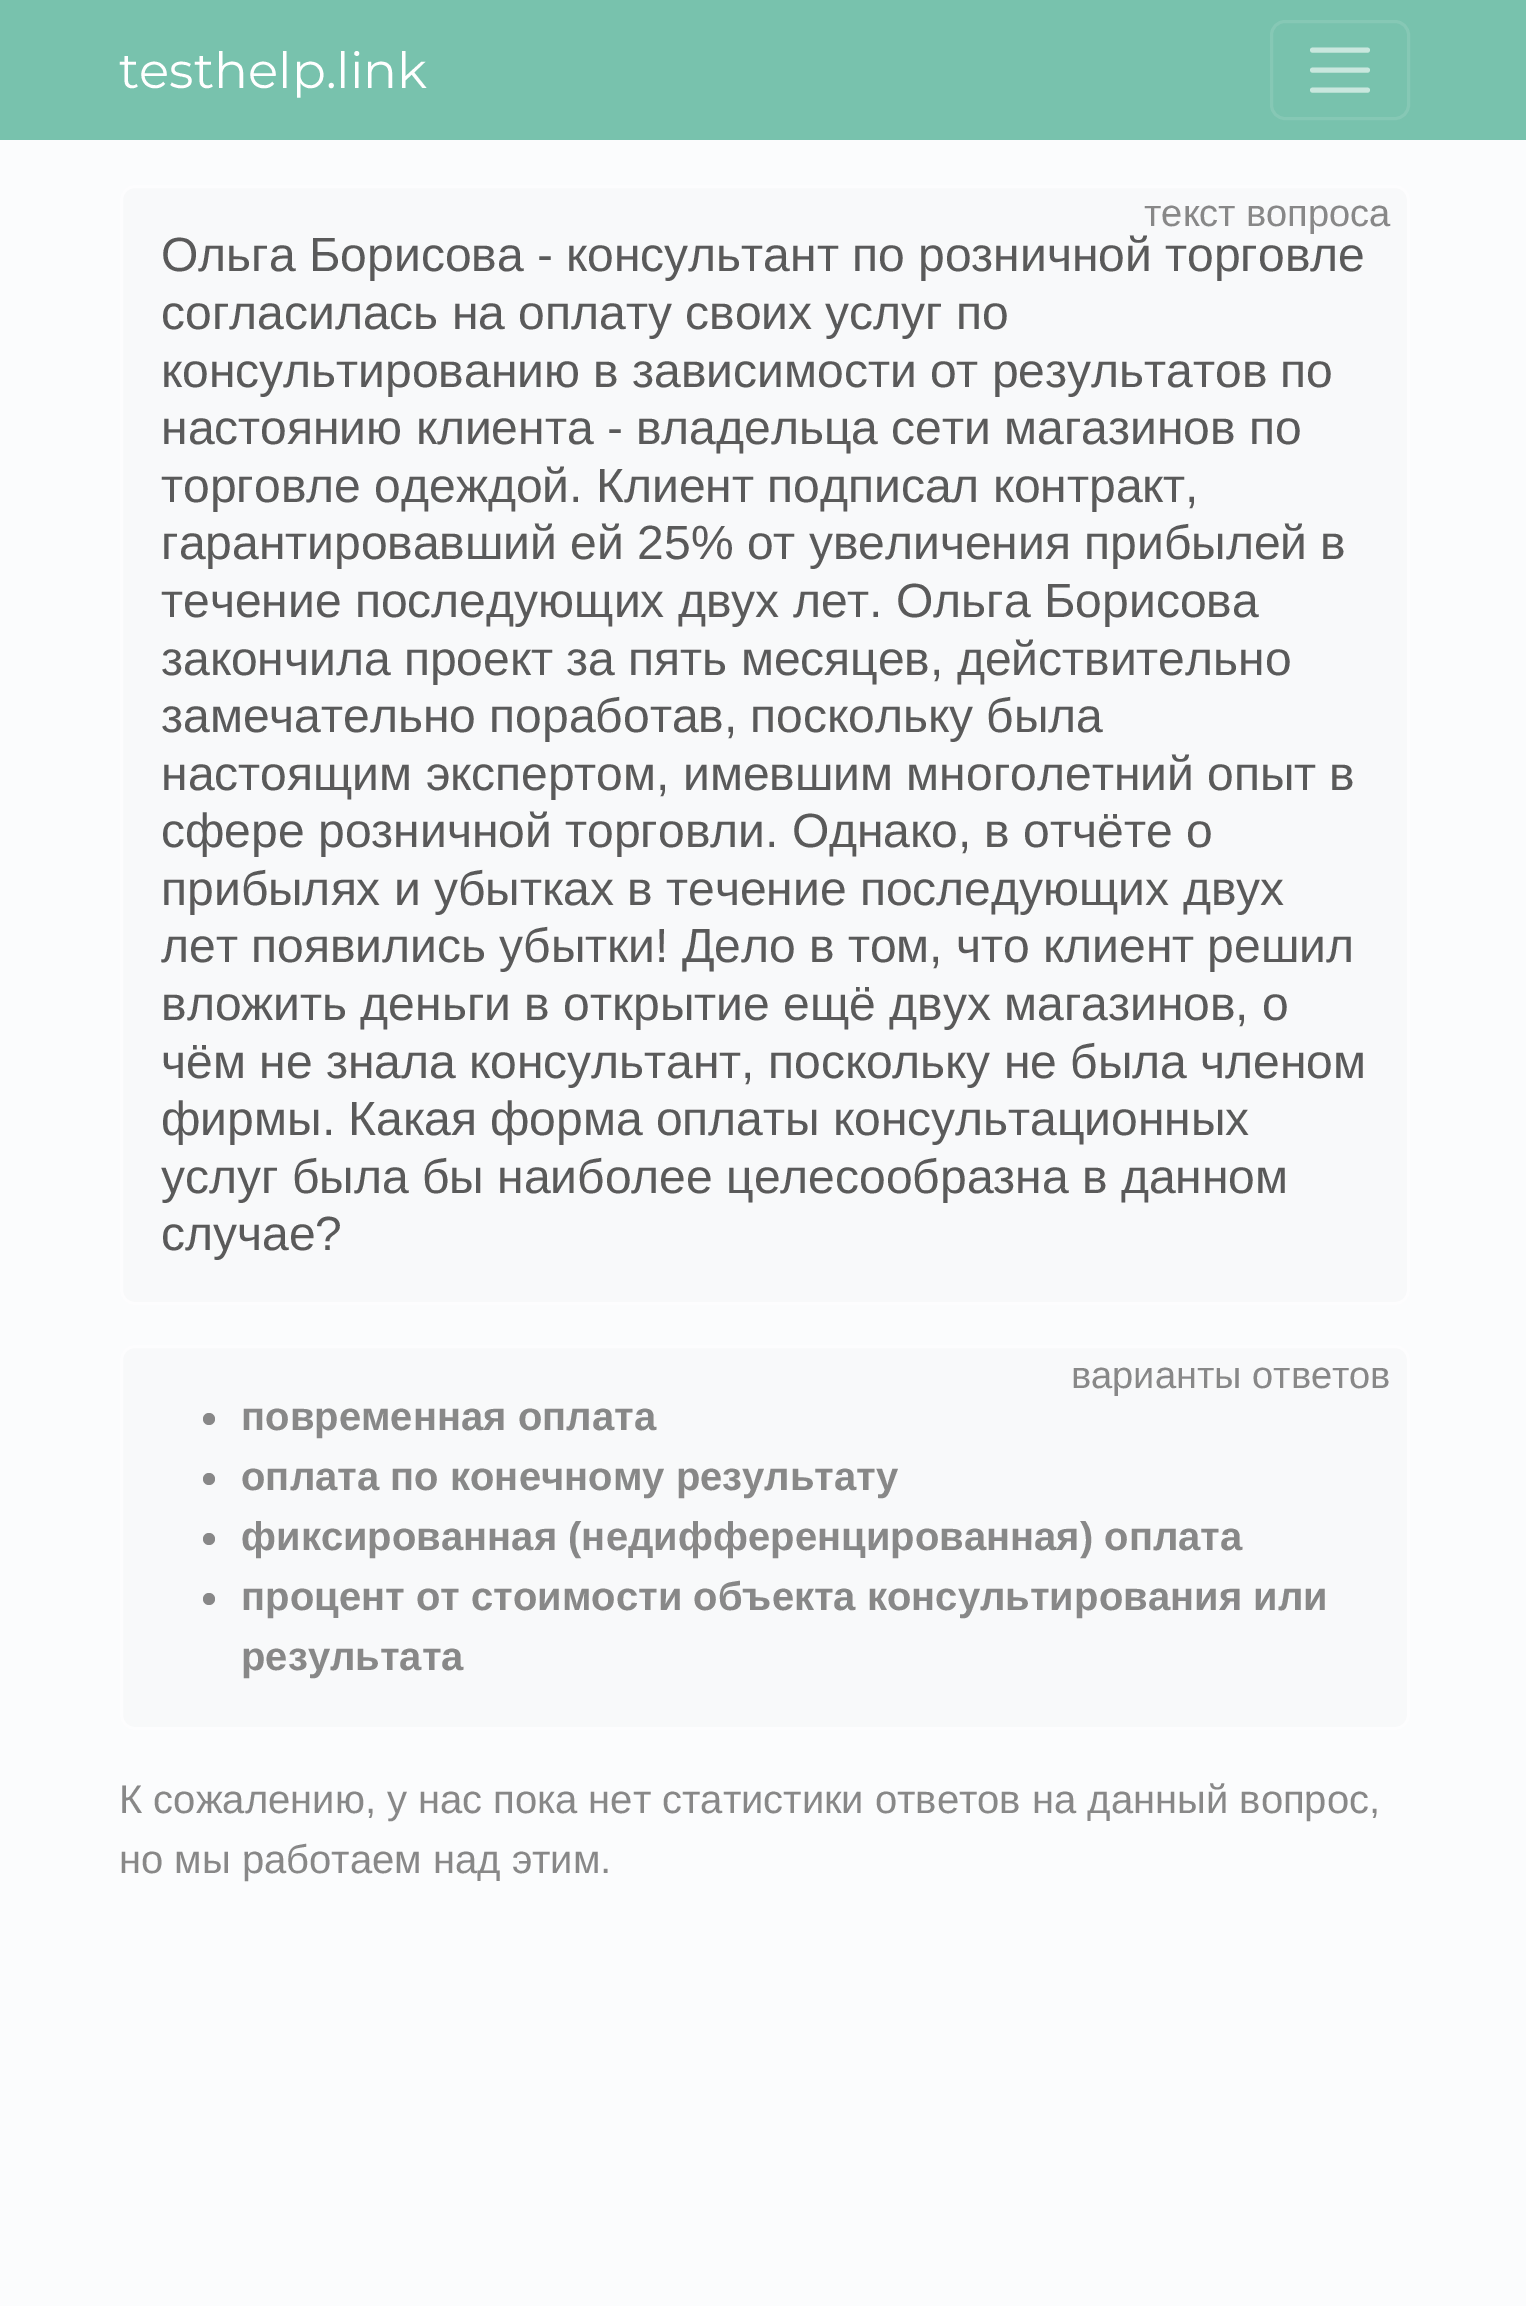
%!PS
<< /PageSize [1526 2306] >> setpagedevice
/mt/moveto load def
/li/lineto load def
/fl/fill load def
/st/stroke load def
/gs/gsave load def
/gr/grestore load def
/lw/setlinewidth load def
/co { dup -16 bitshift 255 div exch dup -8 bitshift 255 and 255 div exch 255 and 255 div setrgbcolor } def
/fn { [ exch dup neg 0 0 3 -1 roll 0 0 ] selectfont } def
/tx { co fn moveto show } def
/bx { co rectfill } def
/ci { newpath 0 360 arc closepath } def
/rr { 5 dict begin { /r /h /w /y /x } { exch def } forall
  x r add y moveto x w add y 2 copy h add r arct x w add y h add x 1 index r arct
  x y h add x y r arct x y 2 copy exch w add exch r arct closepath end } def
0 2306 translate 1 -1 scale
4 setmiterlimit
0 0 1526 2306 16#FBFCFD bx
0 0 1526 140 16#78C2AD bx
16#86C8B5 co
3 lw
1271.5 21.5 137 97 13.5 rr st
16#C9E7DE co
5 lw
1 setlinecap
1312.5 50 mt 1367.5 50 li 1312.5 70 mt 1367.5 70 li 1312.5 90 mt 1367.5 90 li st
16#F8F9FA co
121.5 186.5 1287 1117 13.5 rr gs fl gr
16#FDFDFE co
3 lw
0 setlinecap
st
16#F8F9FA co
121.5 1346.5 1287 382 13.5 rr gs fl gr
16#FDFDFE co
st
16#888888 co
209 1419 6 ci fl
209 1479 6 ci fl
209 1539 6 ci fl
209 1599 6 ci fl
(testhelp.link) 119 88 /Montserrat-Regular 50 16#FFFFFF tx
(текст вопроса) 1144 226 /LiberationSans-Regular 38 16#888888 tx
(Ольга Борисова - консультант по розничной торговле) 161 271 /LiberationSans-Regular 48 16#5A5A5A tx
(согласилась на оплату своих услуг по) 161 329 /LiberationSans-Regular 48 16#5A5A5A tx
(консультированию в зависимости от результатов по) 161 387 /LiberationSans-Regular 48 16#5A5A5A tx
(настоянию клиента - владельца сети магазинов по) 161 444 /LiberationSans-Regular 48 16#5A5A5A tx
(торговле одеждой. Клиент подписал контракт,) 161 502 /LiberationSans-Regular 48 16#5A5A5A tx
(гарантировавший ей 25% от увеличения прибылей в) 161 559 /LiberationSans-Regular 48 16#5A5A5A tx
(течение последующих двух лет. Ольга Борисова) 161 617 /LiberationSans-Regular 48 16#5A5A5A tx
(закончила проект за пять месяцев, действительно) 161 675 /LiberationSans-Regular 48 16#5A5A5A tx
(замечательно поработав, поскольку была) 161 732 /LiberationSans-Regular 48 16#5A5A5A tx
(настоящим экспертом, имевшим многолетний опыт в) 161 790 /LiberationSans-Regular 48 16#5A5A5A tx
(сфере розничной торговли. Однако, в отчёте о) 161 847 /LiberationSans-Regular 48 16#5A5A5A tx
(прибылях и убытках в течение последующих двух) 161 905 /LiberationSans-Regular 48 16#5A5A5A tx
(лет появились убытки! Дело в том, что клиент решил) 161 962 /LiberationSans-Regular 48 16#5A5A5A tx
(вложить деньги в открытие ещё двух магазинов, о) 161 1020 /LiberationSans-Regular 48 16#5A5A5A tx
(чём не знала консультант, поскольку не была членом) 161 1078 /LiberationSans-Regular 48 16#5A5A5A tx
(фирмы. Какая форма оплаты консультационных) 161 1135 /LiberationSans-Regular 48 16#5A5A5A tx
(услуг была бы наиболее целесообразна в данном) 161 1193 /LiberationSans-Regular 48 16#5A5A5A tx
(случае?) 161 1250 /LiberationSans-Regular 48 16#5A5A5A tx
(варианты ответов) 1071 1388 /LiberationSans-Regular 38 16#888888 tx
(повременная оплата) 241 1430 /LiberationSans-Bold 40 16#888888 tx
(оплата по конечному результату) 241 1490 /LiberationSans-Bold 40 16#888888 tx
(фиксированная \(недифференцированная\) оплата) 241 1550 /LiberationSans-Bold 40 16#888888 tx
(процент от стоимости объекта консультирования или) 241 1610 /LiberationSans-Bold 40 16#888888 tx
(результата) 241 1670 /LiberationSans-Bold 40 16#888888 tx
(К сожалению, у нас пока нет статистики ответов на данный вопрос,) 119 1813 /LiberationSans-Regular 40 16#888888 tx
(но мы работаем над этим.) 119 1873 /LiberationSans-Regular 40 16#888888 tx
showpage
